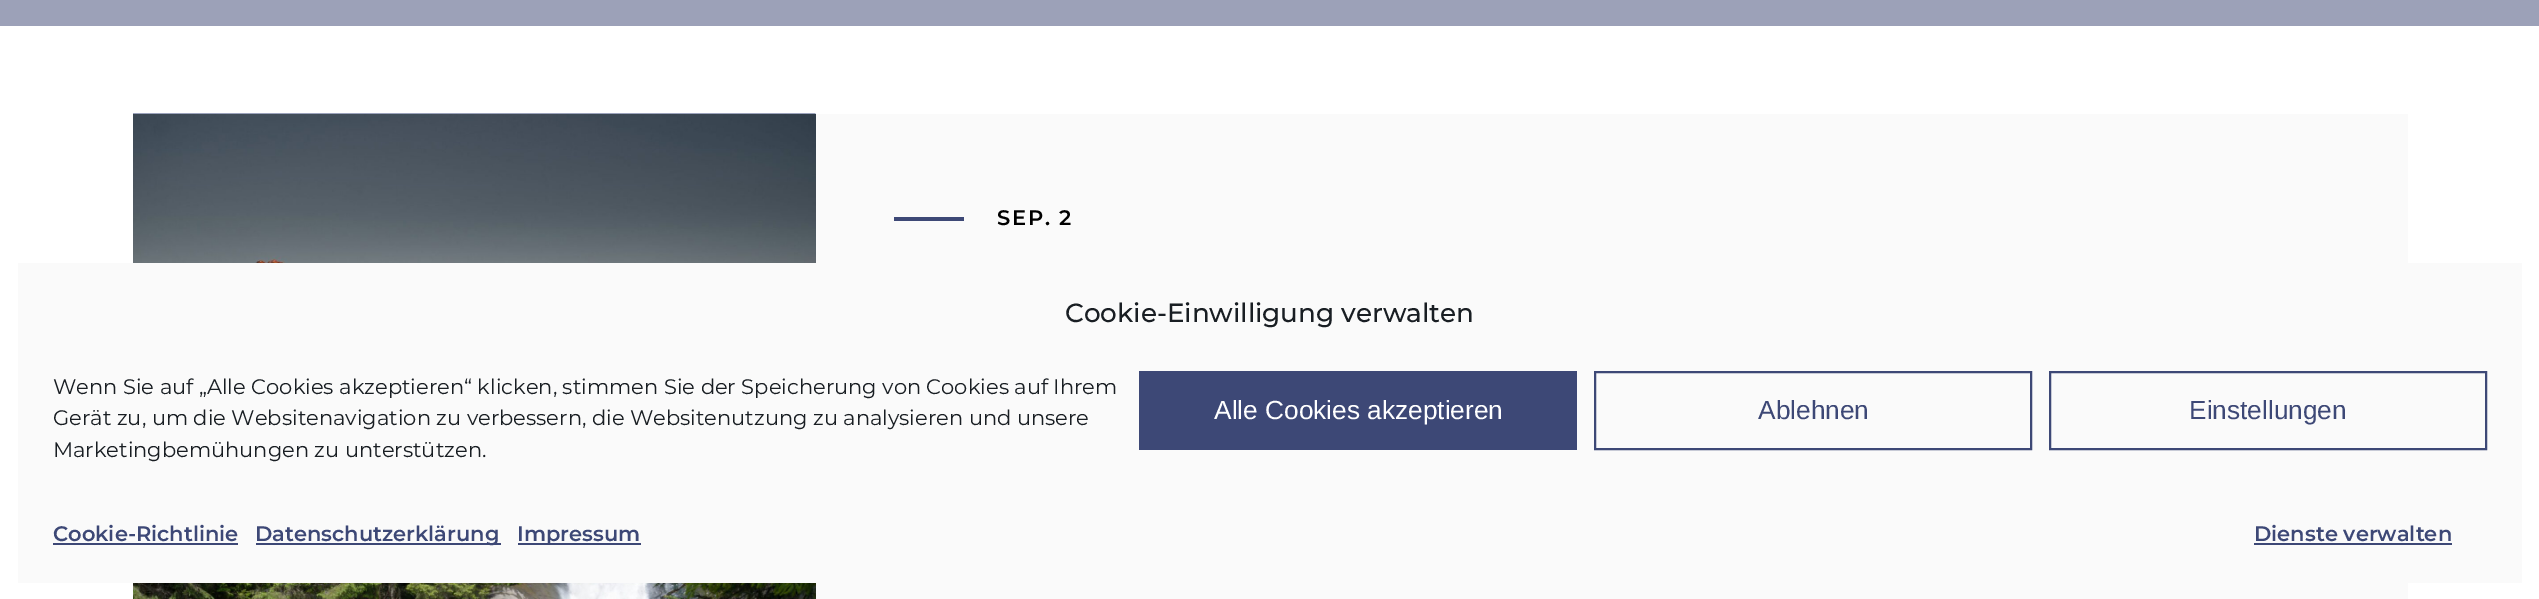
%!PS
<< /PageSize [2539 599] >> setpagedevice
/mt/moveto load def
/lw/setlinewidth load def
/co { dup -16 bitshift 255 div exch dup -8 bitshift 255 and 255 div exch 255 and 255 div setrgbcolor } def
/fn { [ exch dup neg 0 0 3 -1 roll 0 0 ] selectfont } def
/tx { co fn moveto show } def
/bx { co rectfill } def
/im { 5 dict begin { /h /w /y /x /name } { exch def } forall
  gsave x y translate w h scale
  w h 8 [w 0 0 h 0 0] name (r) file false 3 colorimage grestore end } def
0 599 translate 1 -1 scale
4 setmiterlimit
0 0 2539 599 16#FFFFFF bx
0 0 2539 26 16#9CA1B8 bx
(media/1.raw) 133 113 683 150 im
(media/2.raw) 133 114 683 149 im
816 114 1592 149 16#FAFAFA bx
894 217 70 4 16#3D4876 bx
(media/3.raw) 814 583 2 16 im
(media/4.raw) 133 583 683 16 im
816 583 1592 16 16#FAFAFA bx
18 263 2504 320 16#FAFAFA bx
1139 371 438 79 16#3D4876 bx
2 lw
1595 372 436 77 rectstroke
2050 372 436 77 rectstroke
53 543 185 2 16#3D4876 bx
256 543 245 2 16#3D4876 bx
518 543 123 2 16#3D4876 bx
2254 543 198 2 16#3D4876 bx
/Montserrat-SemiBold 21 fn
16#000000 co
997 225 mt 1.75 0 (SEP. 2) ashow
(Cookie-Einwilligung verwalten) 1065 322 /Montserrat-Medium 26.25 16#191E23 tx
(Wenn Sie auf „Alle Cookies akzeptieren“ klicken, stimmen Sie der Speicherung von Cookies auf Ihrem) 53 394 /Montserrat-Regular 21 16#191E23 tx
(Gerät zu, um die Websitenavigation zu verbessern, die Websitenutzung zu analysieren und unsere) 53 425 /Montserrat-Regular 21 16#191E23 tx
(Marketingbemühungen zu unterstützen.) 53 457 /Montserrat-Regular 21 16#191E23 tx
(Alle Cookies akzeptieren) 1214 419 /LiberationSans-Regular 26.25 16#FFFFFF tx
(Ablehnen) 1758 419 /LiberationSans-Regular 26.25 16#3D4876 tx
(Einstellungen) 2189 419 /LiberationSans-Regular 26.25 16#3D4876 tx
(Cookie-Richtlinie) 53 541 /Montserrat-SemiBold 21 16#3D4876 tx
(Datenschutzerklärung) 255 541 /Montserrat-SemiBold 21 16#3D4876 tx
(Impressum) 517 541 /Montserrat-SemiBold 21 16#3D4876 tx
(Dienste verwalten) 2254 541 /Montserrat-SemiBold 21 16#3D4876 tx
showpage
